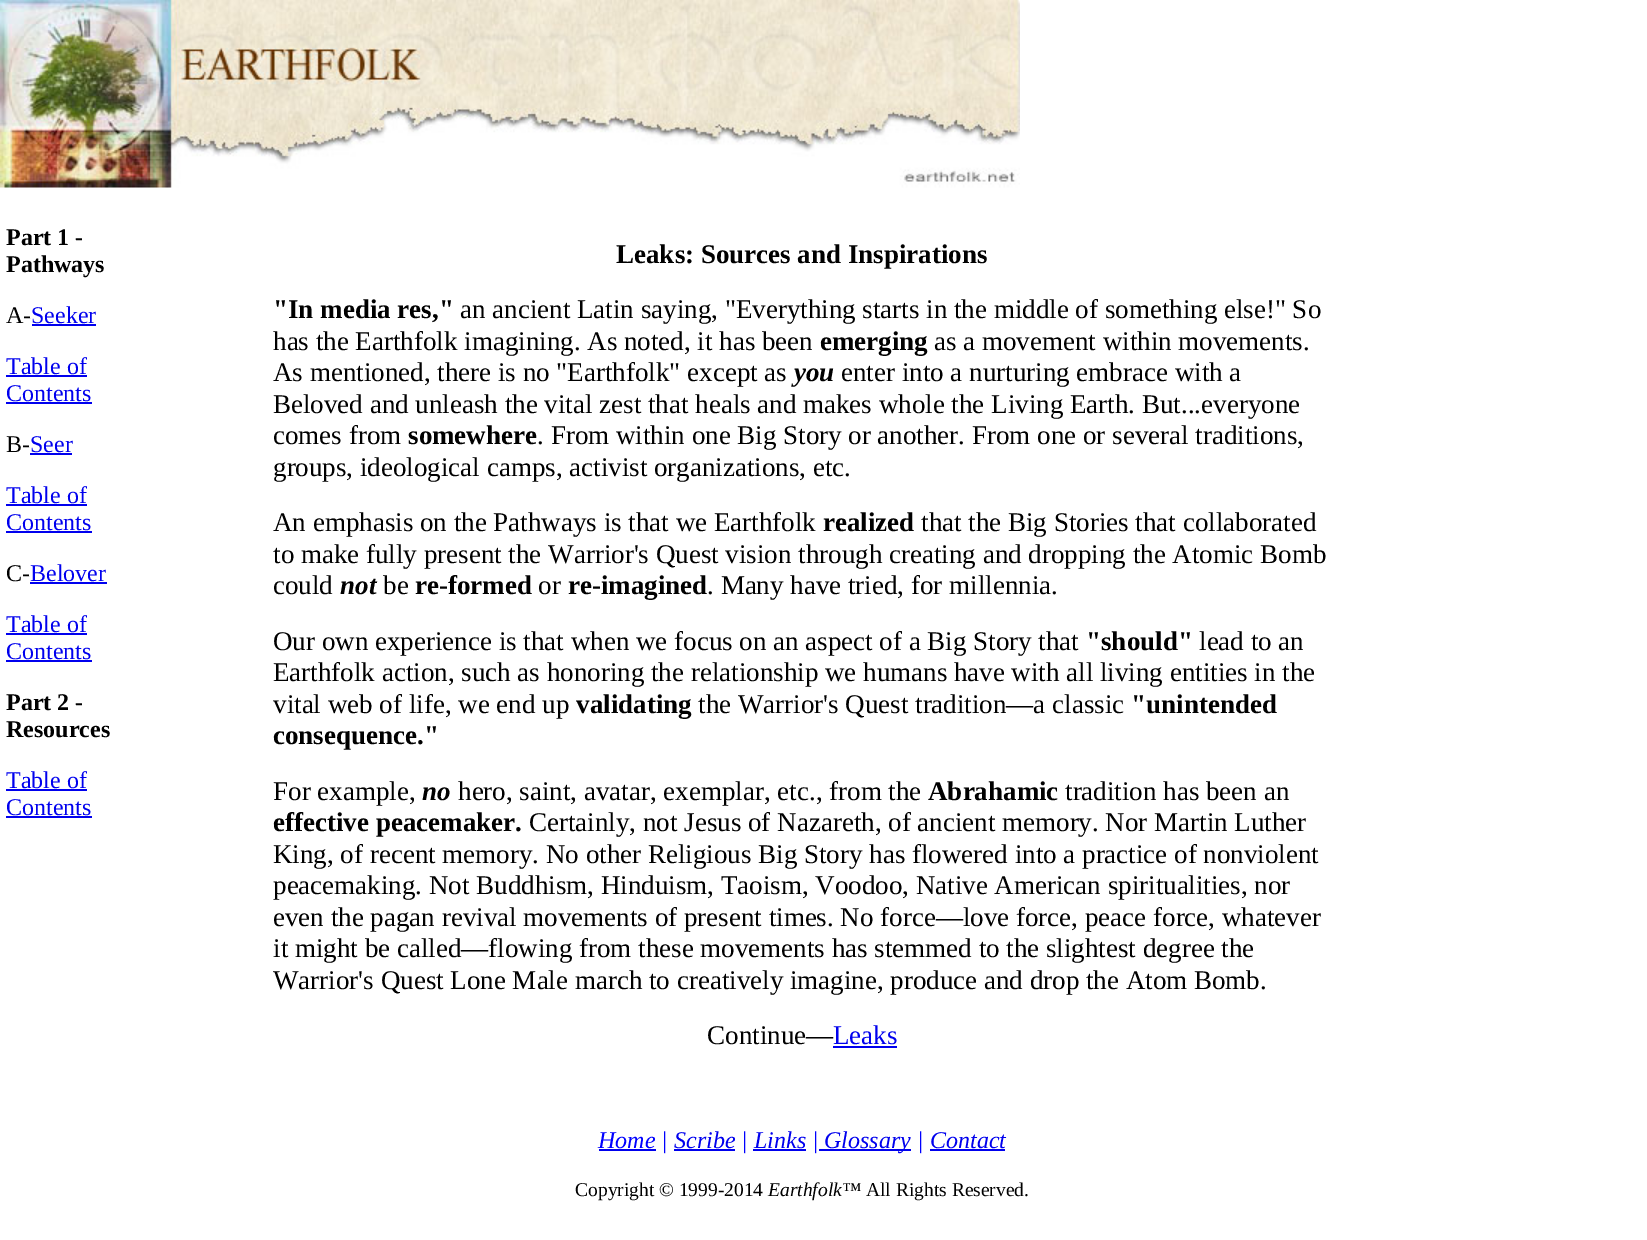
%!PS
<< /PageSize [1647 1240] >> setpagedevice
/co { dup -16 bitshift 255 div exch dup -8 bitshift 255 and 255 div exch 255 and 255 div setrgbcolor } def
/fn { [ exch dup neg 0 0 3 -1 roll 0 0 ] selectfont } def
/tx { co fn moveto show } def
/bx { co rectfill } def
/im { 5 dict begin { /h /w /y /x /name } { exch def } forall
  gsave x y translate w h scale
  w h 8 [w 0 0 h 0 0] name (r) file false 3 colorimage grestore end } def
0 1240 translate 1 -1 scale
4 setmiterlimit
0 0 1647 1240 16#FFFFFF bx
(media/1.raw) 0 0 1020 188 im
32 324 64 2 16#0000EE bx
6 375 81 2 16#0000EE bx
6 402 86 2 16#0000EE bx
30 453 42 2 16#0000EE bx
6 504 81 2 16#0000EE bx
6 531 86 2 16#0000EE bx
30 582 77 2 16#0000EE bx
6 633 81 2 16#0000EE bx
6 660 86 2 16#0000EE bx
6 789 81 2 16#0000EE bx
6 816 86 2 16#0000EE bx
833 1046 64 2 16#0000EE bx
599 1149 57 2 16#0000EE bx
674 1149 61 2 16#0000EE bx
753 1149 53 2 16#0000EE bx
819 1149 92 2 16#0000EE bx
930 1149 75 2 16#0000EE bx
(Part 1 -) 6 245 /LiberationSerif-Bold 24 16#000000 tx
(Pathways) 6 272 /LiberationSerif-Bold 24 16#000000 tx
(A-) 6 323 /LiberationSerif-Regular 24 16#000000 tx
(Seeker) 31 323 /LiberationSerif-Regular 24 16#0000EE tx
(Table of) 6 374 /LiberationSerif-Regular 24 16#0000EE tx
(Contents) 6 401 /LiberationSerif-Regular 24 16#0000EE tx
(B-) 6 452 /LiberationSerif-Regular 24 16#000000 tx
(Seer) 30 452 /LiberationSerif-Regular 24 16#0000EE tx
(Table of) 6 503 /LiberationSerif-Regular 24 16#0000EE tx
(Contents) 6 530 /LiberationSerif-Regular 24 16#0000EE tx
(C-) 6 581 /LiberationSerif-Regular 24 16#000000 tx
(Belover) 30 581 /LiberationSerif-Regular 24 16#0000EE tx
(Table of) 6 632 /LiberationSerif-Regular 24 16#0000EE tx
(Contents) 6 659 /LiberationSerif-Regular 24 16#0000EE tx
(Part 2 -) 6 710 /LiberationSerif-Bold 24 16#000000 tx
(Resources) 6 737 /LiberationSerif-Bold 24 16#000000 tx
(Table of) 6 788 /LiberationSerif-Regular 24 16#0000EE tx
(Contents) 6 815 /LiberationSerif-Regular 24 16#0000EE tx
(Leaks: Sources and Inspirations) 616 263 /LiberationSerif-Bold 27 16#000000 tx
("In media res,") 273 318 /LiberationSerif-Bold 27 16#000000 tx
(an ancient Latin saying, "Everything starts in the middle of something else!" So) 460 318 /LiberationSerif-Regular 27 16#000000 tx
(has the Earthfolk imagining. As noted, it has been) 273 350 /LiberationSerif-Regular 27 16#000000 tx
(emerging) 820 350 /LiberationSerif-Bold 27 16#000000 tx
(as a movement within movements.) 934 350 /LiberationSerif-Regular 27 16#000000 tx
(As mentioned, there is no "Earthfolk" except as) 273 381 /LiberationSerif-Regular 27 16#000000 tx
(you) 794 381 /LiberationSerif-BoldItalic 27 16#000000 tx
(enter into a nurturing embrace with a) 841 381 /LiberationSerif-Regular 27 16#000000 tx
(Beloved and unleash the vital zest that heals and makes whole the Living Earth. But...everyone) 273 413 /LiberationSerif-Regular 27 16#000000 tx
(comes from) 273 444 /LiberationSerif-Regular 27 16#000000 tx
(somewhere) 408 444 /LiberationSerif-Bold 27 16#000000 tx
(. From within one Big Story or another. From one or several traditions,) 537 444 /LiberationSerif-Regular 27 16#000000 tx
(groups, ideological camps, activist organizations, etc.) 273 476 /LiberationSerif-Regular 27 16#000000 tx
(An emphasis on the Pathways is that we Earthfolk) 273 531 /LiberationSerif-Regular 27 16#000000 tx
(realized) 823 531 /LiberationSerif-Bold 27 16#000000 tx
(that the Big Stories that collaborated) 921 531 /LiberationSerif-Regular 27 16#000000 tx
(to make fully present the Warrior's Quest vision through creating and dropping the Atomic Bomb) 273 563 /LiberationSerif-Regular 27 16#000000 tx
(could) 273 594 /LiberationSerif-Regular 27 16#000000 tx
(not) 340 594 /LiberationSerif-BoldItalic 27 16#000000 tx
(be) 383 594 /LiberationSerif-Regular 27 16#000000 tx
(re-formed) 415 594 /LiberationSerif-Bold 27 16#000000 tx
(or) 538 594 /LiberationSerif-Regular 27 16#000000 tx
(re-imagined) 568 594 /LiberationSerif-Bold 27 16#000000 tx
(. Many have tried, for millennia.) 707 594 /LiberationSerif-Regular 27 16#000000 tx
(Our own experience is that when we focus on an aspect of a Big Story that) 273 650 /LiberationSerif-Regular 27 16#000000 tx
("should") 1086 650 /LiberationSerif-Bold 27 16#000000 tx
(lead to an) 1199 650 /LiberationSerif-Regular 27 16#000000 tx
(Earthfolk action, such as honoring the relationship we humans have with all living entities in the) 273 681 /LiberationSerif-Regular 27 16#000000 tx
(vital web of life, we end up) 273 713 /LiberationSerif-Regular 27 16#000000 tx
(validating) 576 713 /LiberationSerif-Bold 27 16#000000 tx
(the Warrior's Quest tradition—a classic) 698 713 /LiberationSerif-Regular 27 16#000000 tx
("unintended) 1131 713 /LiberationSerif-Bold 27 16#000000 tx
(consequence.") 273 744 /LiberationSerif-Bold 27 16#000000 tx
(For example,) 273 800 /LiberationSerif-Regular 27 16#000000 tx
(no) 422 800 /LiberationSerif-BoldItalic 27 16#000000 tx
(hero, saint, avatar, exemplar, etc., from the) 458 800 /LiberationSerif-Regular 27 16#000000 tx
(Abrahamic) 928 800 /LiberationSerif-Bold 27 16#000000 tx
(tradition has been an) 1065 800 /LiberationSerif-Regular 27 16#000000 tx
(effective peacemaker.) 273 831 /LiberationSerif-Bold 27 16#000000 tx
(Certainly, not Jesus of Nazareth, of ancient memory. Nor Martin Luther) 529 831 /LiberationSerif-Regular 27 16#000000 tx
(King, of recent memory. No other Religious Big Story has flowered into a practice of nonviolent) 273 863 /LiberationSerif-Regular 27 16#000000 tx
(peacemaking. Not Buddhism, Hinduism, Taoism, Voodoo, Native American spiritualities, nor) 273 894 /LiberationSerif-Regular 27 16#000000 tx
(even the pagan revival movements of present times. No force—love force, peace force, whatever) 273 926 /LiberationSerif-Regular 27 16#000000 tx
(it might be called—flowing from these movements has stemmed to the slightest degree the) 273 957 /LiberationSerif-Regular 27 16#000000 tx
(Warrior's Quest Lone Male march to creatively imagine, produce and drop the Atom Bomb.) 273 989 /LiberationSerif-Regular 27 16#000000 tx
(Continue—) 707 1044 /LiberationSerif-Regular 27 16#000000 tx
(Leaks) 833 1044 /LiberationSerif-Regular 27 16#0000EE tx
(Home |) 598 1148 /LiberationSerif-Italic 24 16#0000FF tx
(Scribe) 674 1148 /LiberationSerif-Italic 24 16#0000EE tx
(|) 741 1148 /LiberationSerif-Italic 24 16#0000FF tx
(Links) 754 1148 /LiberationSerif-Italic 24 16#0000EE tx
(|) 812 1148 /LiberationSerif-Italic 24 16#0000FF tx
(Glossary) 824 1148 /LiberationSerif-Italic 24 16#0000EE tx
(|) 917 1148 /LiberationSerif-Italic 24 16#0000FF tx
(Contact) 930 1148 /LiberationSerif-Italic 24 16#0000EE tx
(Copyright © 1999-2014) 575 1196 /LiberationSerif-Regular 19.5 16#000000 tx
(Earthfolk™) 768 1196 /LiberationSerif-Italic 19.5 16#000000 tx
(All Rights Reserved.) 866 1196 /LiberationSerif-Regular 19.5 16#000000 tx
showpage
